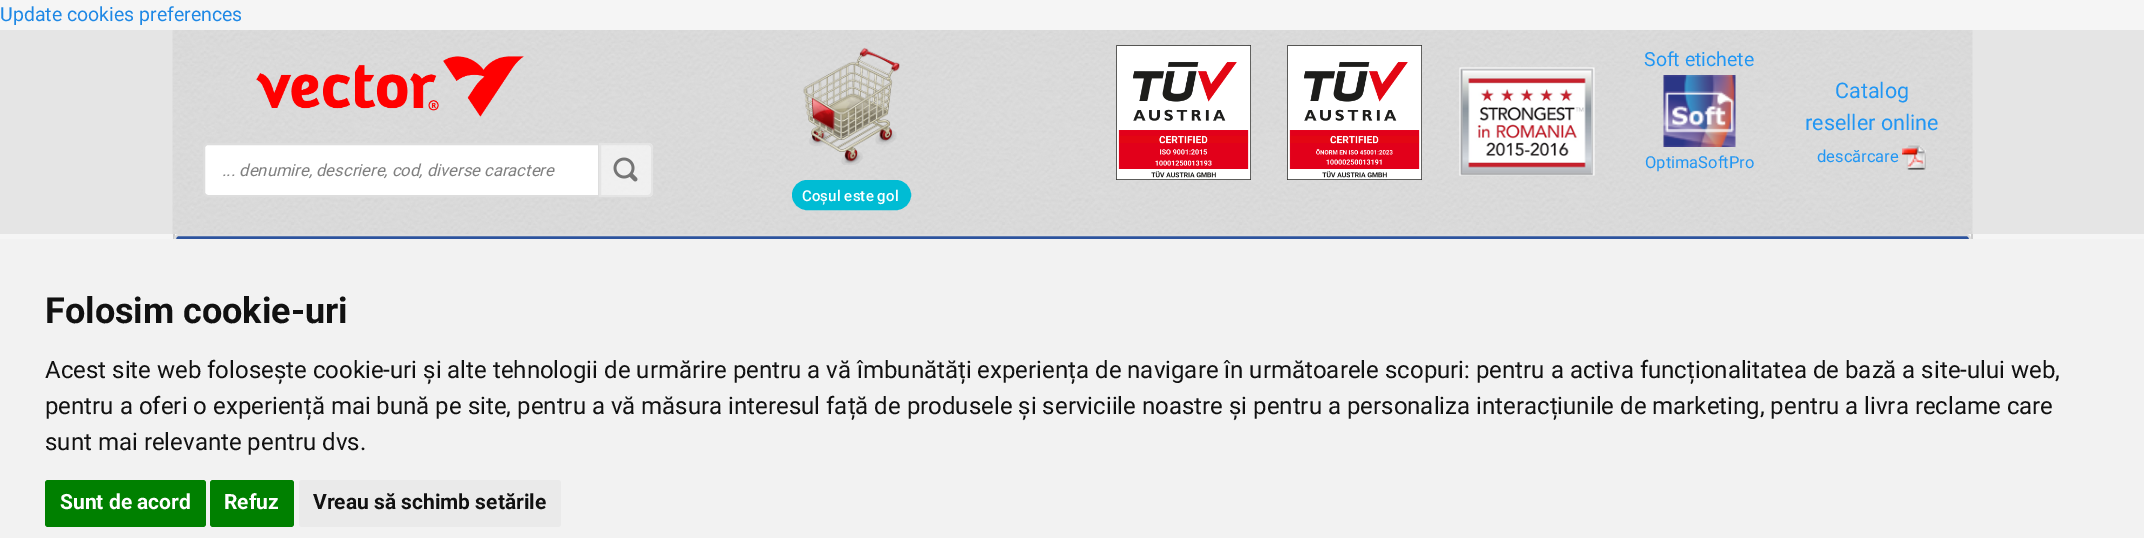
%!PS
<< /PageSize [2144 538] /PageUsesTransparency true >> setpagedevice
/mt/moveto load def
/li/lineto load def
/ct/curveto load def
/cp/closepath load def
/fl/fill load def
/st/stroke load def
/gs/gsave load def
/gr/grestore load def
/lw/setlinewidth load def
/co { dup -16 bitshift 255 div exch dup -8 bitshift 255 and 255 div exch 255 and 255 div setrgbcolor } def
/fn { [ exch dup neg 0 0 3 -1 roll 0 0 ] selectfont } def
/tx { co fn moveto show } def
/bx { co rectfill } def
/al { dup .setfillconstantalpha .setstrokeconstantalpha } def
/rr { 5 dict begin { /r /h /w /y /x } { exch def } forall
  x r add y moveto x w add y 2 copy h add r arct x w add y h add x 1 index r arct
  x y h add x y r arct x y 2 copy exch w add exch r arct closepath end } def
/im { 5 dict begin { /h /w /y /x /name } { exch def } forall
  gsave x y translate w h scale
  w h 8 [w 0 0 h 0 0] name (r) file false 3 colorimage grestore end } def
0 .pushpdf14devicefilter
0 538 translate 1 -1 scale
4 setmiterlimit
0 0 2144 538 16#F5F5F5 bx
0 30 2144 204 16#E5E5E5 bx
(media/1.raw) 172 30 1801 204 im
(media/2.raw) 256 56 268 61 im
16#FFFFFF co
208 144 mt 599 144 li 599 196 li 208 196 li 206 196 204 194 204 192 ct 204 148 li 204 146 206 144 208 144 ct cp gs fl gr
16#DDDDDD co
2 lw
st
0.65 al
16#FCFCFC co
599 143 mt 648 143 li 651 143 653 145 653 148 ct 653 192 li 653 195 651 197 648 197 ct 599 197 li cp fl
16#DDDDDD co
600 144 mt 648 144 li 650 144 652 146 652 148 ct 652 192 li 652 194 650 196 648 196 ct 600 196 li cp st
1 al
(media/3.raw) 613 157 25 25 im
(media/4.raw) 1116 45 135 135 im
(media/5.raw) 1287 45 135 135 im
(media/6.raw) 1459 67 136 109 im
(media/7.raw) 1663 75 73 72 im
(media/8.raw) 1902 145 24 25 im
(media/9.raw) 803 47 97 118 im
16#00BCD4 co
793 181 117 28 14 rr gs fl gr
st
175 234 1796 5 16#FAFAFA bx
1971 234 2 5 16#CCCCCC bx
173 234 2 5 16#CCCCCC bx
16#2C539E co
175 235 1795 70 4 rr gs fl gr
16#DDDDDD co
st
0 239 2144 299 16#F2F2F2 bx
16#008000 co
45 480 161 47 3 rr fl
210 480 84 47 3 rr fl
16#EAEAEA co
299 480 262 47 3 rr fl
(Update cookies preferences) 0 21 /Roboto-Regular 19.5 16#1E88E5 tx
(... denumire, descriere, cod, diverse caractere) 222 176 /Roboto-Italic 16.6 16#808080 tx
(Soft etichete) 1644 66 /Roboto-Regular 19.5 16#2196F3 tx
(OptimaSoftPro) 1645 168 /Roboto-Regular 16.5 16#2196F3 tx
(Catalog) 1835 98 /Roboto-Regular 21.5 16#2196F3 tx
(reseller online) 1805 130 /Roboto-Regular 21.5 16#2196F3 tx
(descărcare) 1817 162 /Roboto-Regular 16.5 16#2196F3 tx
/Roboto-Medium 15 fn
16#FFFFFF co
802 201 mt .1 0 (Coșul este gol) ashow
(Folosim cookie-uri) 45 323 /Roboto-Bold 36 16#111111 tx
(Acest site web folosește cookie-uri și alte tehnologii de urmărire pentru a vă îmbunătăți experiența de navigare în următoarele scopuri: pentru a activa funcționalitatea de bază a site-ului web,) 45 378 /Roboto-Regular 24 16#111111 tx
(pentru a oferi o experiență mai bună pe site, pentru a vă măsura interesul față de produsele și serviciile noastre și pentru a personaliza interacțiunile de marketing, pentru a livra reclame care) 45 414 /Roboto-Regular 24 16#111111 tx
(sunt mai relevante pentru dvs.) 45 450 /Roboto-Regular 24 16#111111 tx
(Sunt de acord) 60 509 /Roboto-Bold 21 16#FFFFFF tx
(Refuz) 224 509 /Roboto-Bold 21 16#FFFFFF tx
(Vreau să schimb setările) 313 509 /Roboto-Bold 21 16#111111 tx
.poppdf14devicefilter showpage
